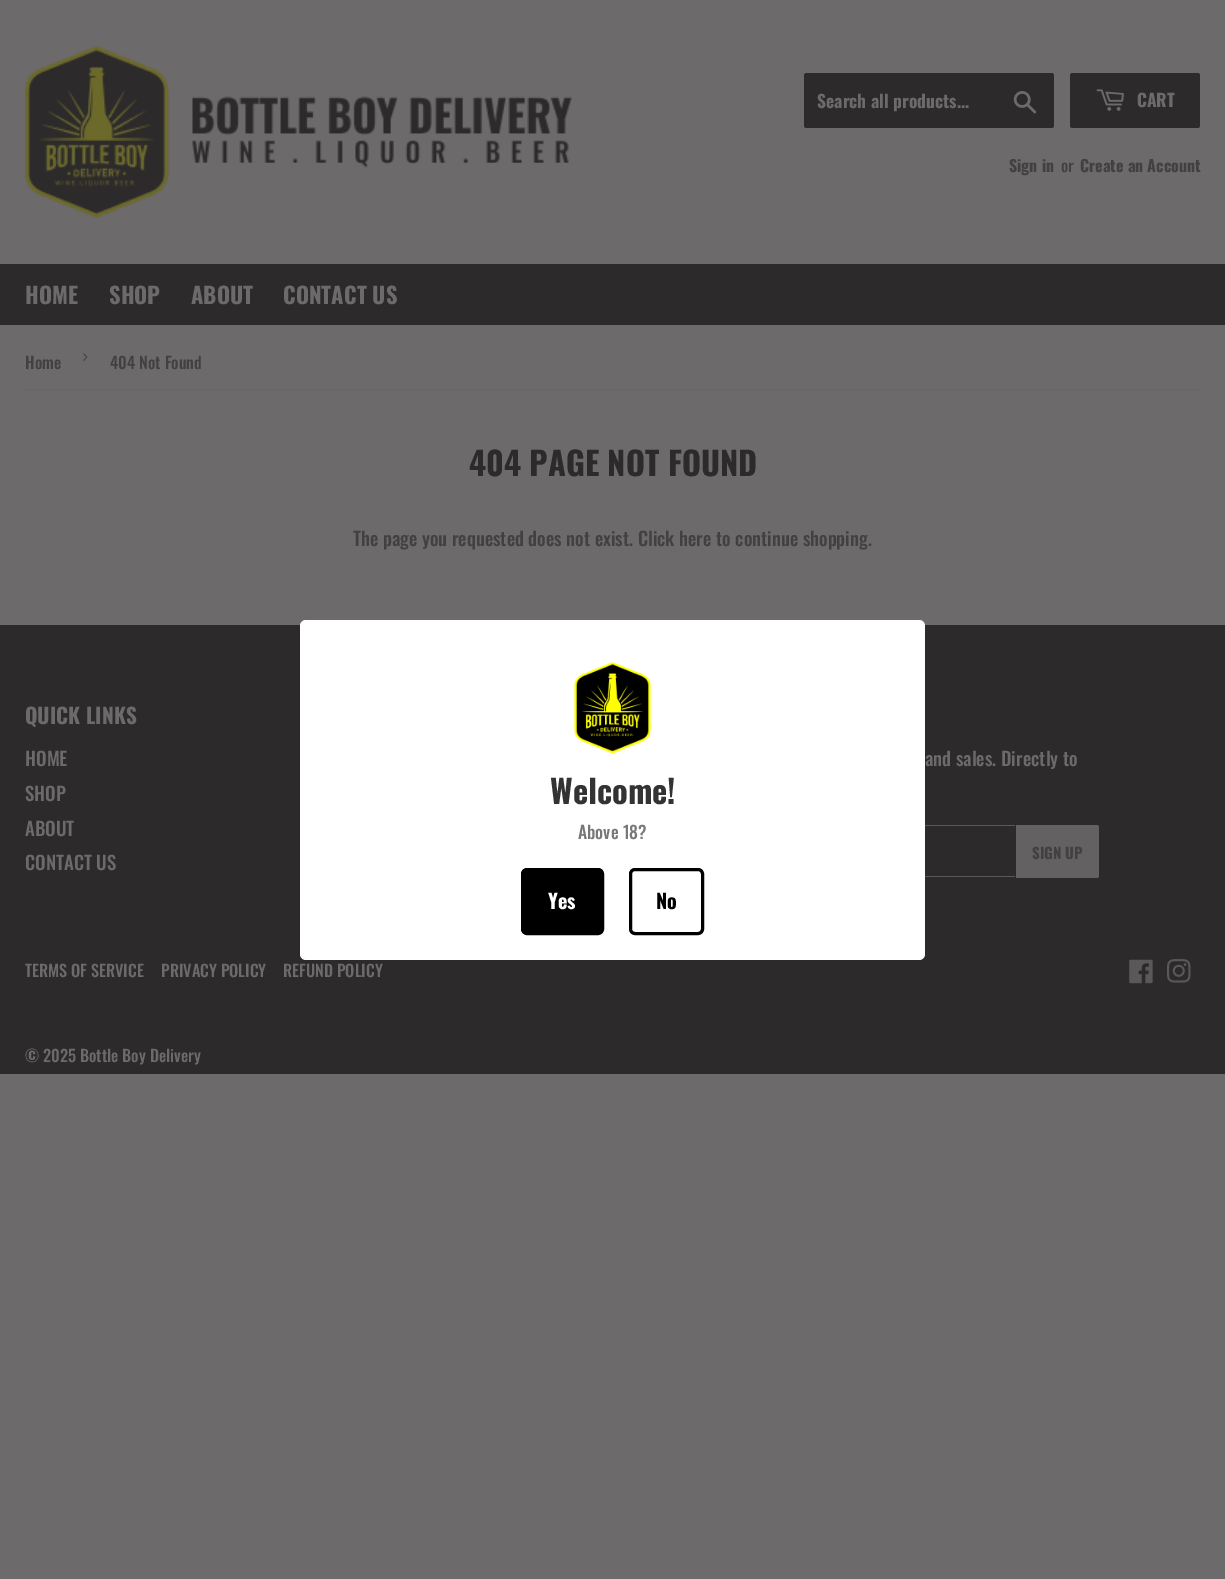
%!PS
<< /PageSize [1225 1579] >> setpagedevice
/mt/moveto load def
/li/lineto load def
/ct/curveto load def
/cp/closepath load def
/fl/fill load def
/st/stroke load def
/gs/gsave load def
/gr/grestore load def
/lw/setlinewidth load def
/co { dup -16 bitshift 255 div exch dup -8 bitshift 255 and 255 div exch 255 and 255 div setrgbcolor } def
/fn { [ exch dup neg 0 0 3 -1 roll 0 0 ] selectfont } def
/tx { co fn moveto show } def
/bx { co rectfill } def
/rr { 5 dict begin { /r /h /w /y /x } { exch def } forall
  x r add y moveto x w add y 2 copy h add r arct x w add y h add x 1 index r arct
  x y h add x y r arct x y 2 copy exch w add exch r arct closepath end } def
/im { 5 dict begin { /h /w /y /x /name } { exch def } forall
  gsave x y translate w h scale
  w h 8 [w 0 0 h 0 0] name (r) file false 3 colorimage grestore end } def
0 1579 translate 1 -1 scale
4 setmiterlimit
0 0 1225 1579 16#6C6A6A bx
(media/1.raw) 25 45 547 174 im
16#2C2A2A co
804 73 250 55 2.5 rr fl
(media/2.raw) 1013 91 24 23 im
1070 73 130 55 2.5 rr fl
(media/3.raw) 1096 89 28 22 im
0 264 1225 61 16#2C2A2A bx
25 389 1175 1 16#676565 bx
0 625 1225 449 16#2C2A2A bx
925 825 90 1 16#5A5858 bx
925 876 90 1 16#5A5858 bx
16#636161 co
1016 825 mt 1096.5 825 li 1098 825 1099 826 1099 827.5 ct 1099 875.5 li 1099 877 1098 878 1096.5 878 ct 1016 878 li cp fl
(media/4.raw) 1129 959 24 25 im
(media/5.raw) 1166 959 25 24 im
16#FFFFFF co
300 620 625 340 6 rr fl
(media/6.raw) 574 662 77 92 im
16#000000 co
522.5 869.5 80 64 4.5 rr gs fl gr
3 lw
st
630.5 869.5 72 64 4.5 rr st
(Search all products...) 817 108 /Oswald-Bold 17.5 16#6C6A6A tx
(CART) 1137 107 /Oswald-Bold 17.5 16#6C6A6A tx
(Sign in) 1009 172 /Oswald-Bold 16 16#424040 tx
(or) 1061 172 /Oswald-Medium 16 16#424040 tx
(Create an Account) 1080 172 /Oswald-Bold 16 16#424040 tx
(HOME) 25 304 /Oswald-Bold 22.5 16#6C6A6A tx
(SHOP) 109 304 /Oswald-Bold 22.5 16#6C6A6A tx
(ABOUT) 191 304 /Oswald-Bold 22.5 16#6C6A6A tx
(CONTACT US) 283 304 /Oswald-Bold 22.5 16#6C6A6A tx
(Home) 25 369 /Oswald-Medium 16.25 16#424040 tx
(›) 82 362 /LiberationSans-Regular 18.75 16#4A4848 tx
(404 Not Found) 110 369 /Oswald-Medium 16.25 16#424040 tx
(404 PAGE NOT FOUND) 469 476 /Oswald-Bold 32.5 16#2C2A2A tx
(The page you requested does not exist. Click) 353 546 /Oswald-Medium 18.75 16#424040 tx
(here) 679 546 /Oswald-Medium 18.75 16#424040 tx
(to continue shopping.) 716 546 /Oswald-Medium 18.75 16#424040 tx
(QUICK LINKS) 25 724 /Oswald-Bold 21.25 16#6C6A6A tx
(HOME) 25 766 /Oswald-Medium 18.75 16#6C6A6A tx
(SHOP) 25 801 /Oswald-Medium 18.75 16#6C6A6A tx
(ABOUT) 25 836 /Oswald-Medium 18.75 16#6C6A6A tx
(CONTACT US) 25 870 /Oswald-Medium 18.75 16#6C6A6A tx
(and sales. Directly to) 925 766 /Oswald-Medium 18.75 16#6C6A6A tx
(SIGN UP) 1032 859 /Oswald-Bold 15 16#424040 tx
(TERMS OF SERVICE) 25 977 /Oswald-Medium 16.25 16#6C6A6A tx
(PRIVACY POLICY) 161 977 /Oswald-Medium 16.25 16#6C6A6A tx
(REFUND POLICY) 283 977 /Oswald-Medium 16.25 16#6C6A6A tx
(© 2025 Bottle Boy Delivery) 25 1062 /Oswald-Medium 16.25 16#6C6A6A tx
(Welcome!) 550 804 /Oswald-Bold 32.5 16#333333 tx
(Above 18?) 578 839 /Oswald-Medium 17.5 16#787878 tx
(Yes) 548 909 /Oswald-Bold 20 16#FFFFFF tx
(No) 656 909 /Oswald-Bold 20 16#000000 tx
showpage
